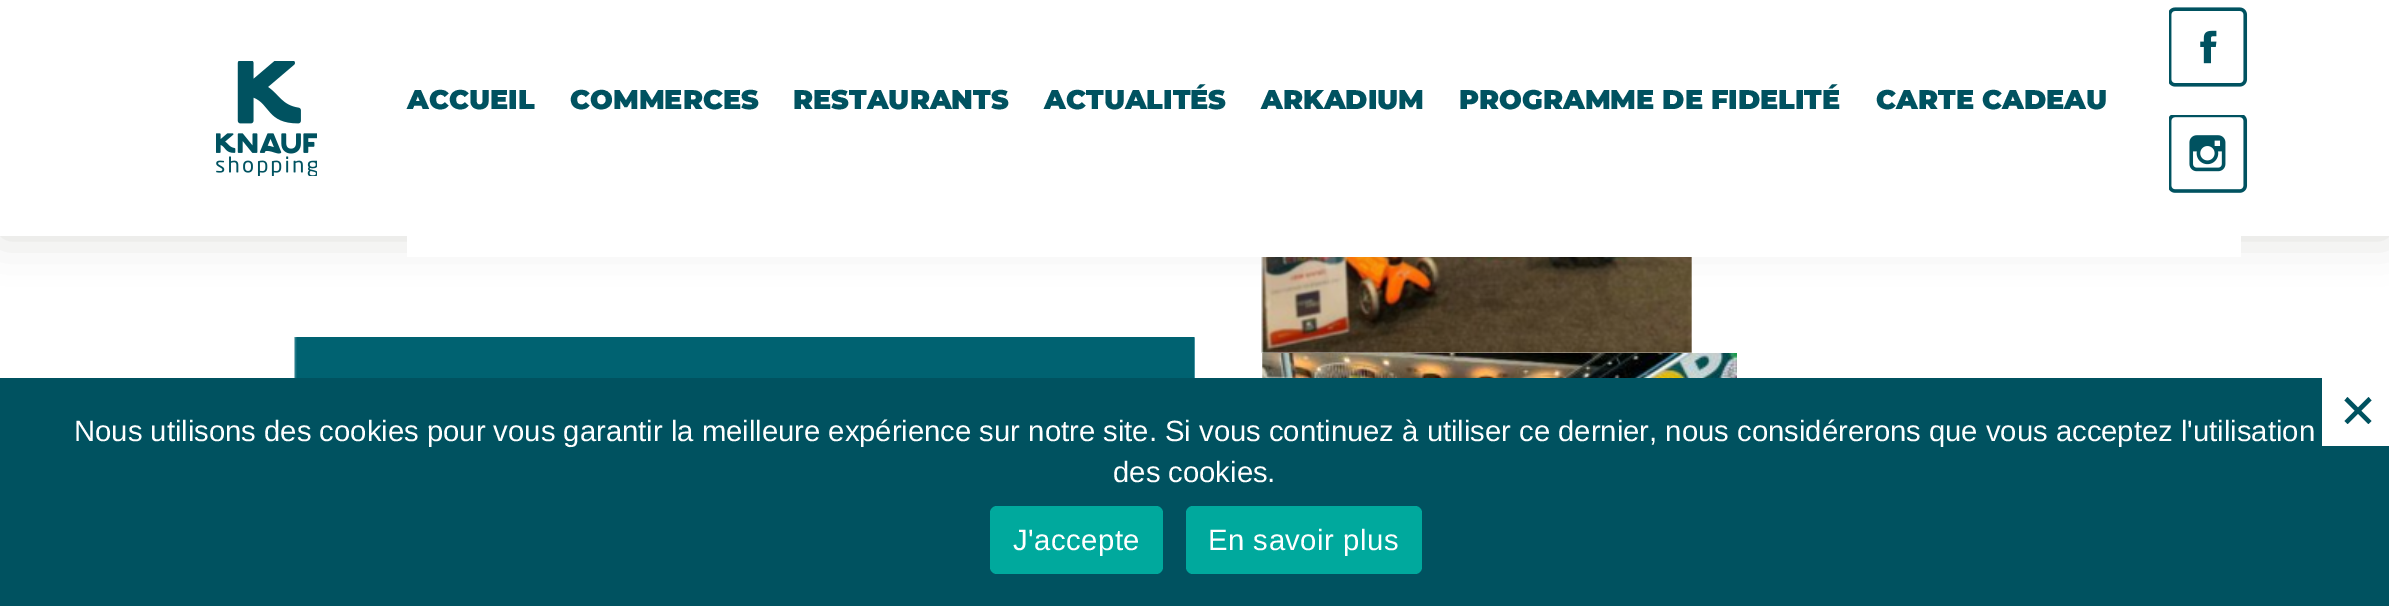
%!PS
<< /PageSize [2389 606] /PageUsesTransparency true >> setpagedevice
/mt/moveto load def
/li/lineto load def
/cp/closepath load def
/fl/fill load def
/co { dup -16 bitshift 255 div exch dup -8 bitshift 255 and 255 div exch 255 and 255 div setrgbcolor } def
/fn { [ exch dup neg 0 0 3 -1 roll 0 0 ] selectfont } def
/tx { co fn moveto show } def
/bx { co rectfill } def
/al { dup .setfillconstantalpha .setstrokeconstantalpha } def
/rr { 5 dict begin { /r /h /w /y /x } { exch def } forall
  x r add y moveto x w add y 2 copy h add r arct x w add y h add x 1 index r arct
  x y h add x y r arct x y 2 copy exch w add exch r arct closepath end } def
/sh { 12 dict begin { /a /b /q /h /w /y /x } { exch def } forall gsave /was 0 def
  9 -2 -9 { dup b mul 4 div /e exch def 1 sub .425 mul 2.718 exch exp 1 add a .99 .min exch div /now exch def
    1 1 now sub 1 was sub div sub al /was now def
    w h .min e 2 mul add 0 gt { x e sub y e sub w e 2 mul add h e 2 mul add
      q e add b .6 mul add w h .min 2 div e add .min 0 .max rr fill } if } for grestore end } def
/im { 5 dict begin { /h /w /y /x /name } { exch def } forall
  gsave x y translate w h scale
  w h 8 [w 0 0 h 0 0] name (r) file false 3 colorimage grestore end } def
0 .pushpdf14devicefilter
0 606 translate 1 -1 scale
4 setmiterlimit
0 0 2389 606 16#FFFFFF bx
(media/5.raw) 1261 257 431 96 im
16#726D65 co
0 0 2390 236 0 22.5 .25 sh
0 0 2389 236 16#FFFFFF bx
(media/1.raw) 216 61 101 115 im
407 236 1834 21 16#FFFFFF bx
(media/2.raw) 2169 7 79 80 im
(media/3.raw) 2169 115 79 78 im
295 338 900 40 16#A0D5E3 bx
(media/4.raw) 294 337 901 41 im
(media/6.raw) 1262 353 475 25 im
0 378 2389 228 16#005260 bx
2322 378 67 68 16#FFFFFF bx
16#005260 co
2368.5 397 mt 2371.5 400.5 li 2347.5 424 li 2344.5 421 li cp fl
2344.5 400.5 mt 2347.5 397 li 2371.5 421 li 2368.5 424 li cp fl
16#00A99D co
990 506 173 68 7 rr fl
1186 506 236 68 7 rr fl
(ACCUEIL) 407 109 /Montserrat-Black 27 16#005260 tx
(COMMERCES) 570 109 /Montserrat-Black 27 16#005260 tx
(RESTAURANTS) 793 109 /Montserrat-Black 27 16#005260 tx
(ACTUALITÉS) 1044 109 /Montserrat-Black 27 16#005260 tx
(ARKADIUM) 1261 109 /Montserrat-Black 27 16#005260 tx
(PROGRAMME DE FIDELITÉ) 1459 109 /Montserrat-Black 27 16#005260 tx
(CARTE CADEAU) 1876 109 /Montserrat-Black 27 16#005260 tx
(Nous utilisons des cookies pour vous garantir la meilleure expérience sur notre site. Si vous continuez à utiliser ce dernier, nous considérerons que vous acceptez l'utilisation) 74 441 /LiberationSans-Regular 29.25 16#FFFFFF tx
(des cookies.) 1113 482 /LiberationSans-Regular 29.25 16#FFFFFF tx
1013 550 mt .5 0 (J'accepte) ashow
1208 550 mt .5 0 (En savoir plus) ashow
.poppdf14devicefilter showpage
